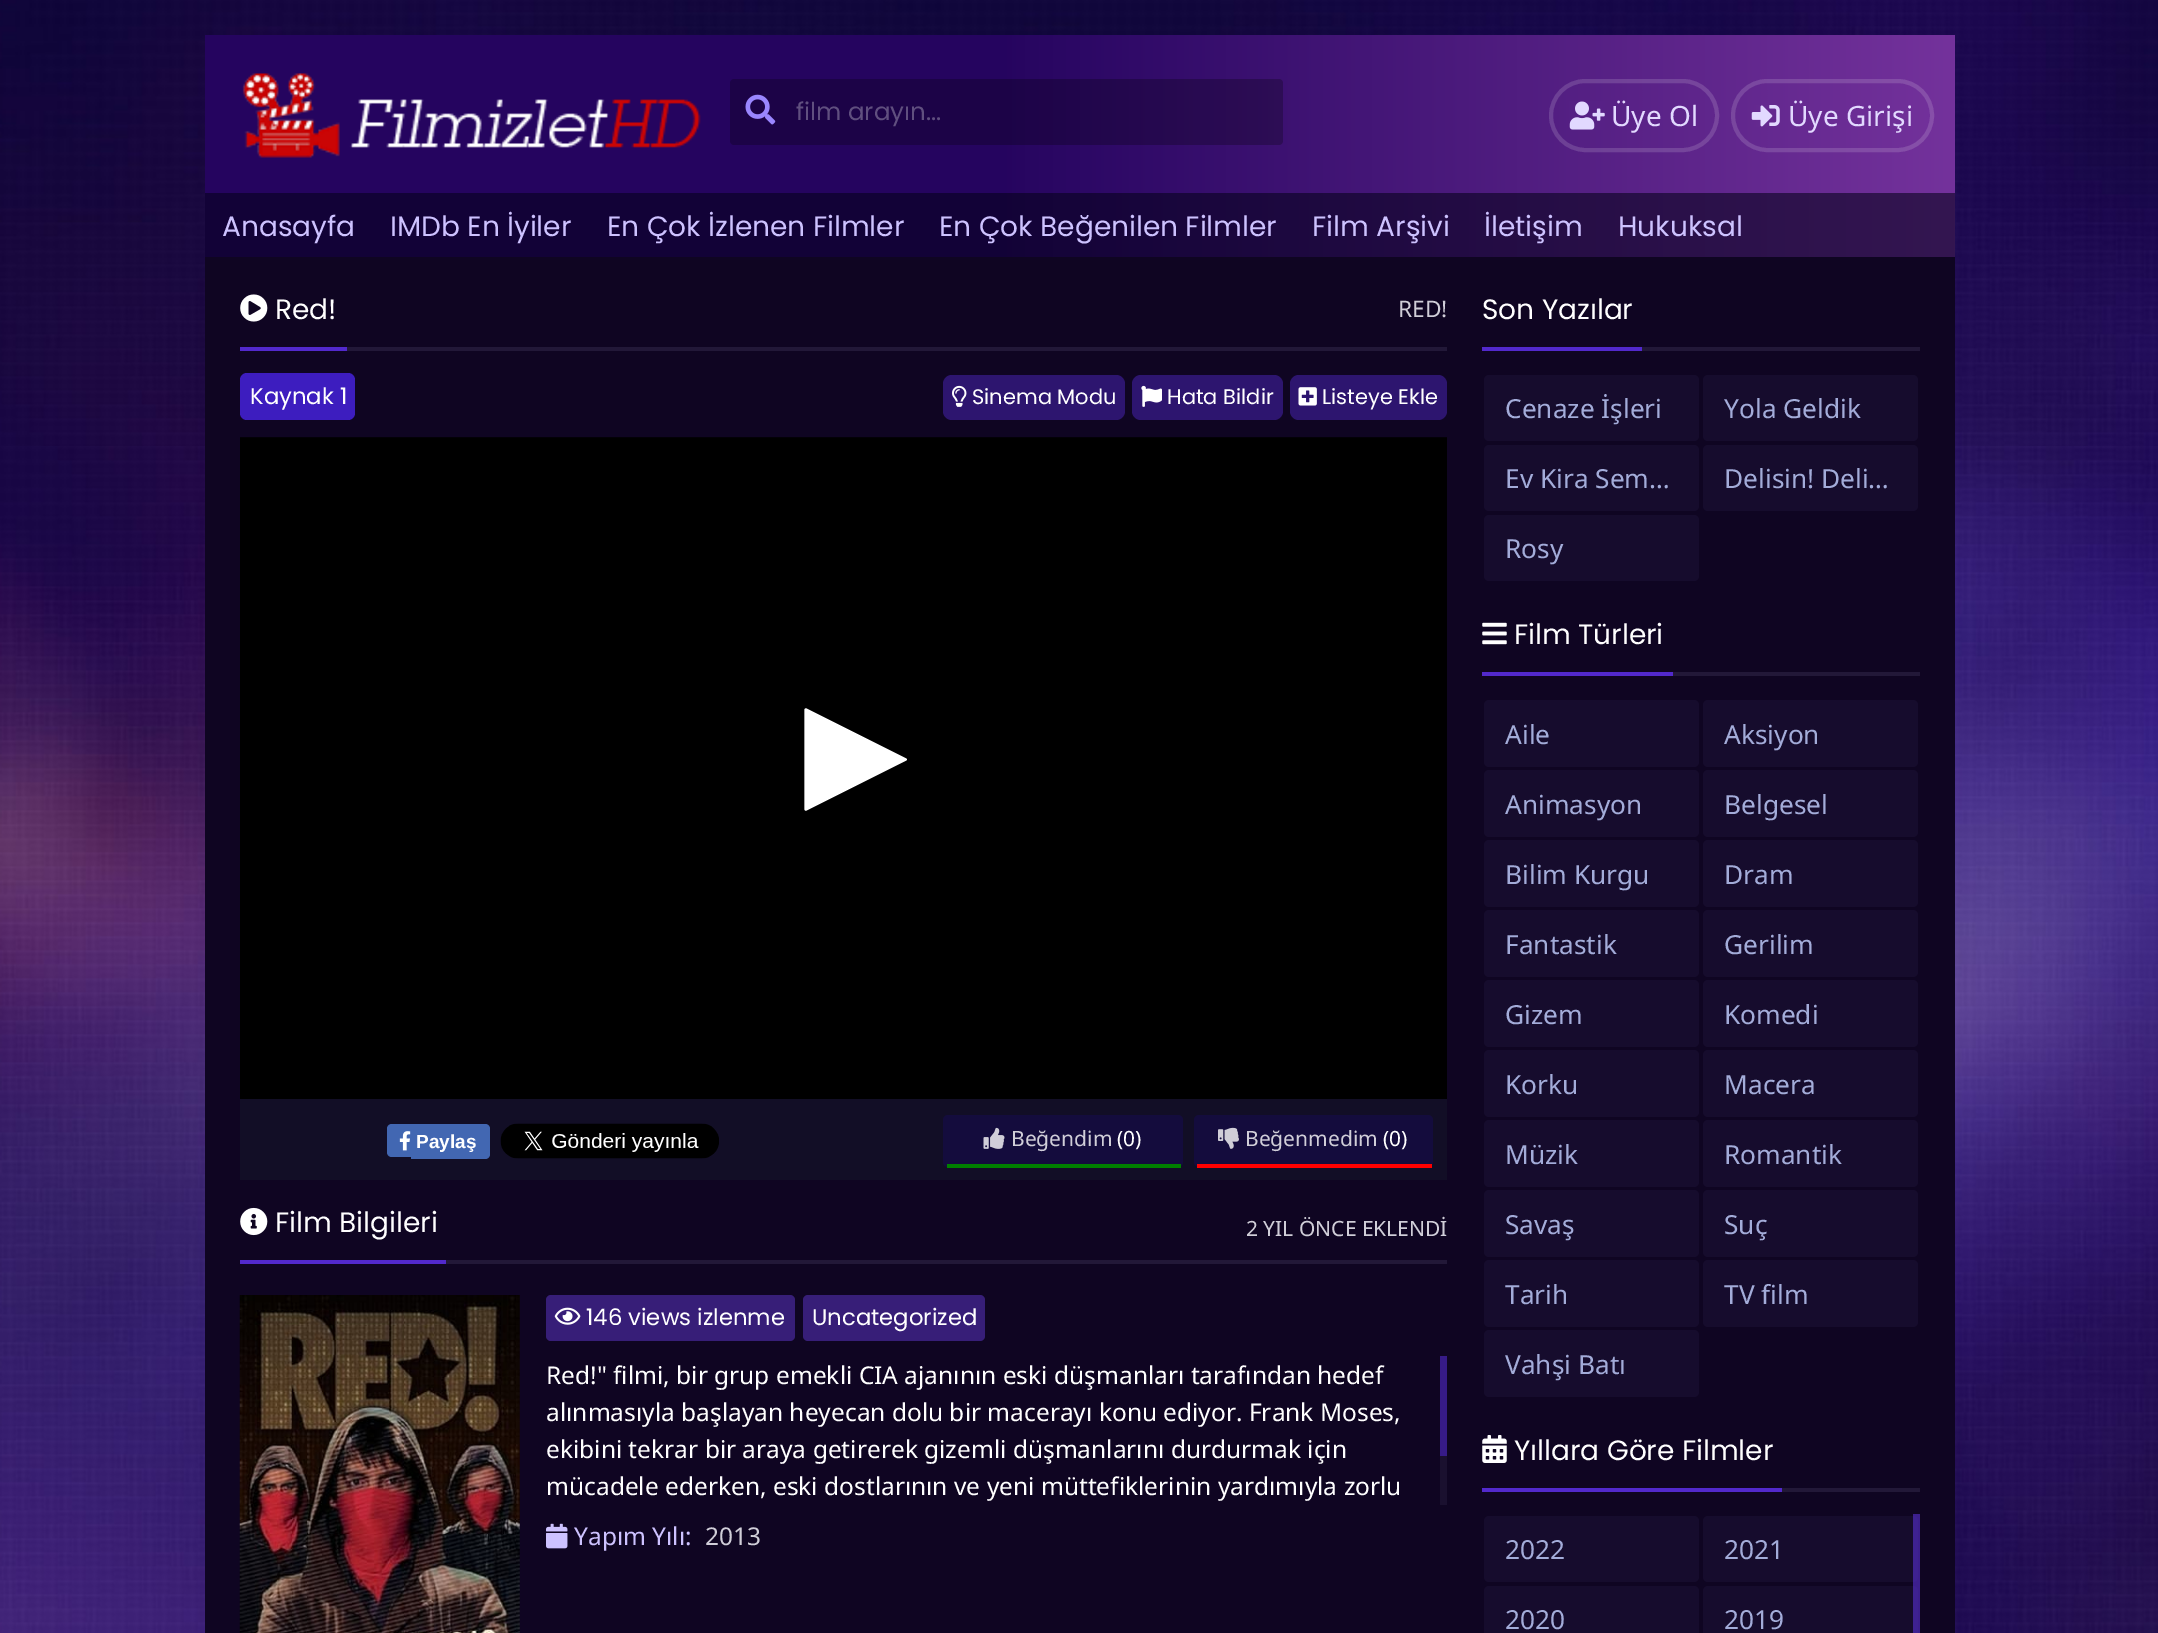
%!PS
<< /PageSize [2158 1633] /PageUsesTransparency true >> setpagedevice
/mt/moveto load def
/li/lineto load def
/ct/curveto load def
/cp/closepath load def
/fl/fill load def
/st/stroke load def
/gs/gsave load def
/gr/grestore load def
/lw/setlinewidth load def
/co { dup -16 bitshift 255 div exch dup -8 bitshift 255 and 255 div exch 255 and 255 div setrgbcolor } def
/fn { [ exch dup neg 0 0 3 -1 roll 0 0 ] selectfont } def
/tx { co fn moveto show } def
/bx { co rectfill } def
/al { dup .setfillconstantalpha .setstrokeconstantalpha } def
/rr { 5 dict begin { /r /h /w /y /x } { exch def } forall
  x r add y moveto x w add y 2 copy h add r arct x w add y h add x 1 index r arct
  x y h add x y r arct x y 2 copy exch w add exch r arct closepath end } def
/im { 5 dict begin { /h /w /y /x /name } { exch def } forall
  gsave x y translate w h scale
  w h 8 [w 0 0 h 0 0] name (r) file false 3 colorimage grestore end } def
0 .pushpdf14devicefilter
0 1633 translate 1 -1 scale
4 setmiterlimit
0 0 2158 1633 16#FFFFFF bx
(media/1.raw) 0 0 2158 1633 im
205 257 1750 1376 16#0F0522 bx
gs 205 35 mt 1955 35 li 1955 257 li 205 257 li cp clip newpath
<< /ShadingType 2 /ColorSpace /DeviceRGB /Coords [205 146 1955 146] /Extend [true true] /Function << /FunctionType 3 /Domain [0 1] /Functions [<< /FunctionType 2 /Domain [0 1] /C0 [.145 .016 .373] /C1 [.145 .016 .373] /N 1 >> << /FunctionType 2 /Domain [0 1] /C0 [.145 .016 .373] /C1 [.455 .196 .612] /N 1 >>] /Bounds [.45] /Encode [0 1 0 1] >> >> shfill gr
(media/2.raw) 242 73 459 85 im
0.15 al
16#FFFFFF co
4 lw
1551 81 166 69 34.5 rr st
1 al
(media/3.raw) 1569 101 36 29 im
0.15 al
1733 81 199 69 34.5 rr st
1 al
(media/4.raw) 1751 105 29 22 im
0.58 al
205 193 1750 64 16#05011A bx
1 al
16#1C0347 co
734 79 mt 788 79 li 788 145 li 734 145 li 732 145 730 143 730 141 ct 730 83 li 730 81 732 79 734 79 ct cp fl
(media/5.raw) 745 94 31 31 im
0.25 al
16#000000 co
788 79 mt 1279 79 li 1281 79 1283 81 1283 83 ct 1283 141 li 1283 143 1281 145 1279 145 ct 788 145 li cp fl
1 al
347 347 1100 4 16#221838 bx
240 347 107 4 16#5229CC bx
(media/6.raw) 240 294 28 28 im
16#3D1DBF co
240 373 115 47 7 rr fl
16#2D156F co
943 375 182 45 9 rr fl
(media/7.raw) 952 385 15 22 im
1132 375 151 45 9 rr fl
(media/8.raw) 1141 385 21 22 im
1290 375 157 45 9 rr fl
(media/9.raw) 1298 387 19 19 im
(media/10.raw) 240 437 1207 662 im
240 1099 1207 81 16#120E26 bx
16#4267B2 co
392 1124 mt 411 1124 li 411 1157 li 392 1157 li 389 1157 387 1155 387 1152 ct 387 1129 li 387 1126 389 1124 392 1124 ct cp fl
411 1124 mt 485 1124 li 488 1124 490 1126 490 1129 ct 490 1154 li 490 1157 488 1159 485 1159 ct 411 1159 li cp fl
(media/11.raw) 399 1131 12 20 im
(media/12.raw) 500 1123 219 36 im
16#140C3D co
943 1115 240 52 5 rr fl
947 1164 234 4 16#008000 bx
(media/13.raw) 983 1127 22 22 im
16#140C3D co
1194 1115 239 52 5 rr fl
1197 1164 235 4 16#FF0000 bx
(media/14.raw) 1218 1127 21 22 im
446 1260 1001 4 16#221838 bx
240 1260 206 4 16#5229CC bx
(media/15.raw) 240 1207 28 29 im
(media/16.raw) 239 1295 281 338 im
16#371E78 co
546 1295 249 46 5 rr fl
(media/17.raw) 554 1307 27 18 im
803 1295 182 46 5 rr fl
1440 1456 7 49 16#1A102F bx
1440 1356 7 100 16#371B88 bx
(media/18.raw) 546 1523 22 26 im
1642 347 278 4 16#221838 bx
1482 347 160 4 16#5229CC bx
16#160C2D co
1484 375 215 66 5 rr fl
1703 375 215 66 5 rr fl
1484 445 215 66 5 rr fl
1703 445 215 66 5 rr fl
1484 515 215 66 5 rr fl
1673 672 247 4 16#221838 bx
1482 672 191 4 16#5229CC bx
(media/19.raw) 1482 622 25 23 im
16#160C2D co
1484 700 215 67 5 rr fl
1703 700 215 67 5 rr fl
1484 770 215 67 5 rr fl
1703 770 215 67 5 rr fl
1484 840 215 67 5 rr fl
1703 840 215 67 5 rr fl
1484 910 215 67 5 rr fl
1703 910 215 67 5 rr fl
1484 980 215 67 5 rr fl
1703 980 215 67 5 rr fl
1484 1050 215 67 5 rr fl
1703 1050 215 67 5 rr fl
1484 1120 215 67 5 rr fl
1703 1120 215 67 5 rr fl
1484 1190 215 67 5 rr fl
1703 1190 215 67 5 rr fl
1484 1260 215 67 5 rr fl
1703 1260 215 67 5 rr fl
1484 1330 215 67 5 rr fl
1782 1488 138 4 16#221838 bx
1482 1488 300 4 16#5229CC bx
(media/20.raw) 1482 1435 25 28 im
16#160C2D co
1484 1516 215 66 5 rr fl
1703 1516 215 66 5 rr fl
1703 1586 215 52 5 rr fl
0.06 al
1913 1514 7 119 16#CDC2FF bx
0.6 al
1913 1514 7 119 16#5229CC bx
1 al
16#160C2D co
1484 1586 215 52 5 rr fl
(Üye Ol) 1611 126 /NotoSans-Regular 28 16#E2D9FF tx
(Üye Girişi) 1788 126 /NotoSans-Regular 28 16#E2D9FF tx
(film arayın...) 796 120 /Poppins-Regular 24.5 16#604F7F tx
(Anasayfa) 222 236 /Poppins-Regular 28 16#CDC2FF tx
(IMDb En İyiler) 390 236 /Poppins-Regular 28 16#CDC2FF tx
(En Çok İzlenen Filmler) 607 236 /Poppins-Regular 28 16#CDC2FF tx
(En Çok Beğenilen Filmler) 939 236 /Poppins-Regular 28 16#CDC2FF tx
(Film Arşivi) 1312 236 /Poppins-Regular 28 16#CDC2FF tx
(İletişim) 1484 236 /Poppins-Regular 28 16#CDC2FF tx
(Hukuksal) 1618 236 /Poppins-Regular 28 16#CDC2FF tx
(Red!) 275 319 /Poppins-Regular 28 16#FFFFFF tx
(RED!) 1398 317 /NotoSans-Regular 22.75 16#D0CED8 tx
(Kaynak 1) 250 404 /Poppins-Regular 22.75 16#FFFFFF tx
(Sinema Modu) 972 404 /Poppins-Regular 21 16#FFFFFF tx
(Hata Bildir) 1167 404 /Poppins-Regular 21 16#FFFFFF tx
(Listeye Ekle) 1322 404 /Poppins-Regular 21 16#FFFFFF tx
(Paylaş) 416 1148 /LiberationSans-Bold 19 16#FFFFFF tx
(Beğendim) 1011 1146 /NotoSans-Regular 21 16#D0CED8 tx
(\(0\)) 1117 1146 /NotoSans-Regular 21 16#FFFFFF tx
(Beğenmedim) 1245 1146 /NotoSans-Regular 21 16#D0CED8 tx
(\(0\)) 1383 1146 /NotoSans-Regular 21 16#FFFFFF tx
(Film Bilgileri) 275 1232 /Poppins-Regular 28 16#FFFFFF tx
(2 YIL ÖNCE EKLENDİ) 1246 1236 /NotoSans-Regular 21 16#D0CED8 tx
(146 views izlenme) 586 1325 /Poppins-Regular 22.75 16#FFFFFF tx
(Uncategorized) 812 1325 /Poppins-Regular 22.75 16#FFFFFF tx
(Red!" filmi, bir grup emekli CIA ajanının eski düşmanları tarafından hedef) 546 1384 /NotoSans-Regular 24.5 16#FFFFFF tx
(alınmasıyla başlayan heyecan dolu bir macerayı konu ediyor. Frank Moses,) 546 1421 /NotoSans-Regular 24.5 16#FFFFFF tx
(ekibini tekrar bir araya getirerek gizemli düşmanlarını durdurmak için) 546 1458 /NotoSans-Regular 24.5 16#FFFFFF tx
(mücadele ederken, eski dostlarının ve yeni müttefiklerinin yardımıyla zorlu) 546 1495 /NotoSans-Regular 24.5 16#FFFFFF tx
(Yapım Yılı:) 574 1545 /NotoSans-Regular 24.5 16#CDC2FF tx
(2013) 705 1545 /NotoSans-Regular 24.5 16#D0CED8 tx
(Son Yazılar) 1482 319 /Poppins-Regular 28 16#FFFFFF tx
(Cenaze İşleri) 1505 418 /NotoSans-Regular 26.25 16#A3ACD9 tx
(Yola Geldik) 1724 418 /NotoSans-Regular 26.25 16#A3ACD9 tx
(Ev Kira Sem…) 1505 488 /NotoSans-Regular 26.25 16#A3ACD9 tx
(Delisin! Deli…) 1724 488 /NotoSans-Regular 26.25 16#A3ACD9 tx
(Rosy) 1505 558 /NotoSans-Regular 26.25 16#A3ACD9 tx
(Film Türleri) 1514 644 /Poppins-Regular 28 16#FFFFFF tx
(Aile) 1505 744 /NotoSans-Regular 26.25 16#A3ACD9 tx
(Aksiyon) 1724 744 /NotoSans-Regular 26.25 16#A3ACD9 tx
(Animasyon) 1505 814 /NotoSans-Regular 26.25 16#A3ACD9 tx
(Belgesel) 1724 814 /NotoSans-Regular 26.25 16#A3ACD9 tx
(Bilim Kurgu) 1505 884 /NotoSans-Regular 26.25 16#A3ACD9 tx
(Dram) 1724 884 /NotoSans-Regular 26.25 16#A3ACD9 tx
(Fantastik) 1505 954 /NotoSans-Regular 26.25 16#A3ACD9 tx
(Gerilim) 1724 954 /NotoSans-Regular 26.25 16#A3ACD9 tx
(Gizem) 1505 1024 /NotoSans-Regular 26.25 16#A3ACD9 tx
(Komedi) 1724 1024 /NotoSans-Regular 26.25 16#A3ACD9 tx
(Korku) 1505 1094 /NotoSans-Regular 26.25 16#A3ACD9 tx
(Macera) 1724 1094 /NotoSans-Regular 26.25 16#A3ACD9 tx
(Müzik) 1505 1164 /NotoSans-Regular 26.25 16#A3ACD9 tx
(Romantik) 1724 1164 /NotoSans-Regular 26.25 16#A3ACD9 tx
(Savaş) 1505 1234 /NotoSans-Regular 26.25 16#A3ACD9 tx
(Suç) 1724 1234 /NotoSans-Regular 26.25 16#A3ACD9 tx
(Tarih) 1505 1304 /NotoSans-Regular 26.25 16#A3ACD9 tx
(TV film) 1724 1304 /NotoSans-Regular 26.25 16#A3ACD9 tx
(Vahşi Batı) 1505 1374 /NotoSans-Regular 26.25 16#A3ACD9 tx
(Yıllara Göre Filmler) 1514 1460 /Poppins-Regular 28 16#FFFFFF tx
(2022) 1505 1559 /NotoSans-Regular 26.25 16#A3ACD9 tx
(2021) 1724 1559 /NotoSans-Regular 26.25 16#A3ACD9 tx
(2020) 1505 1629 /NotoSans-Regular 26.25 16#A3ACD9 tx
(2019) 1724 1629 /NotoSans-Regular 26.25 16#A3ACD9 tx
.poppdf14devicefilter showpage
